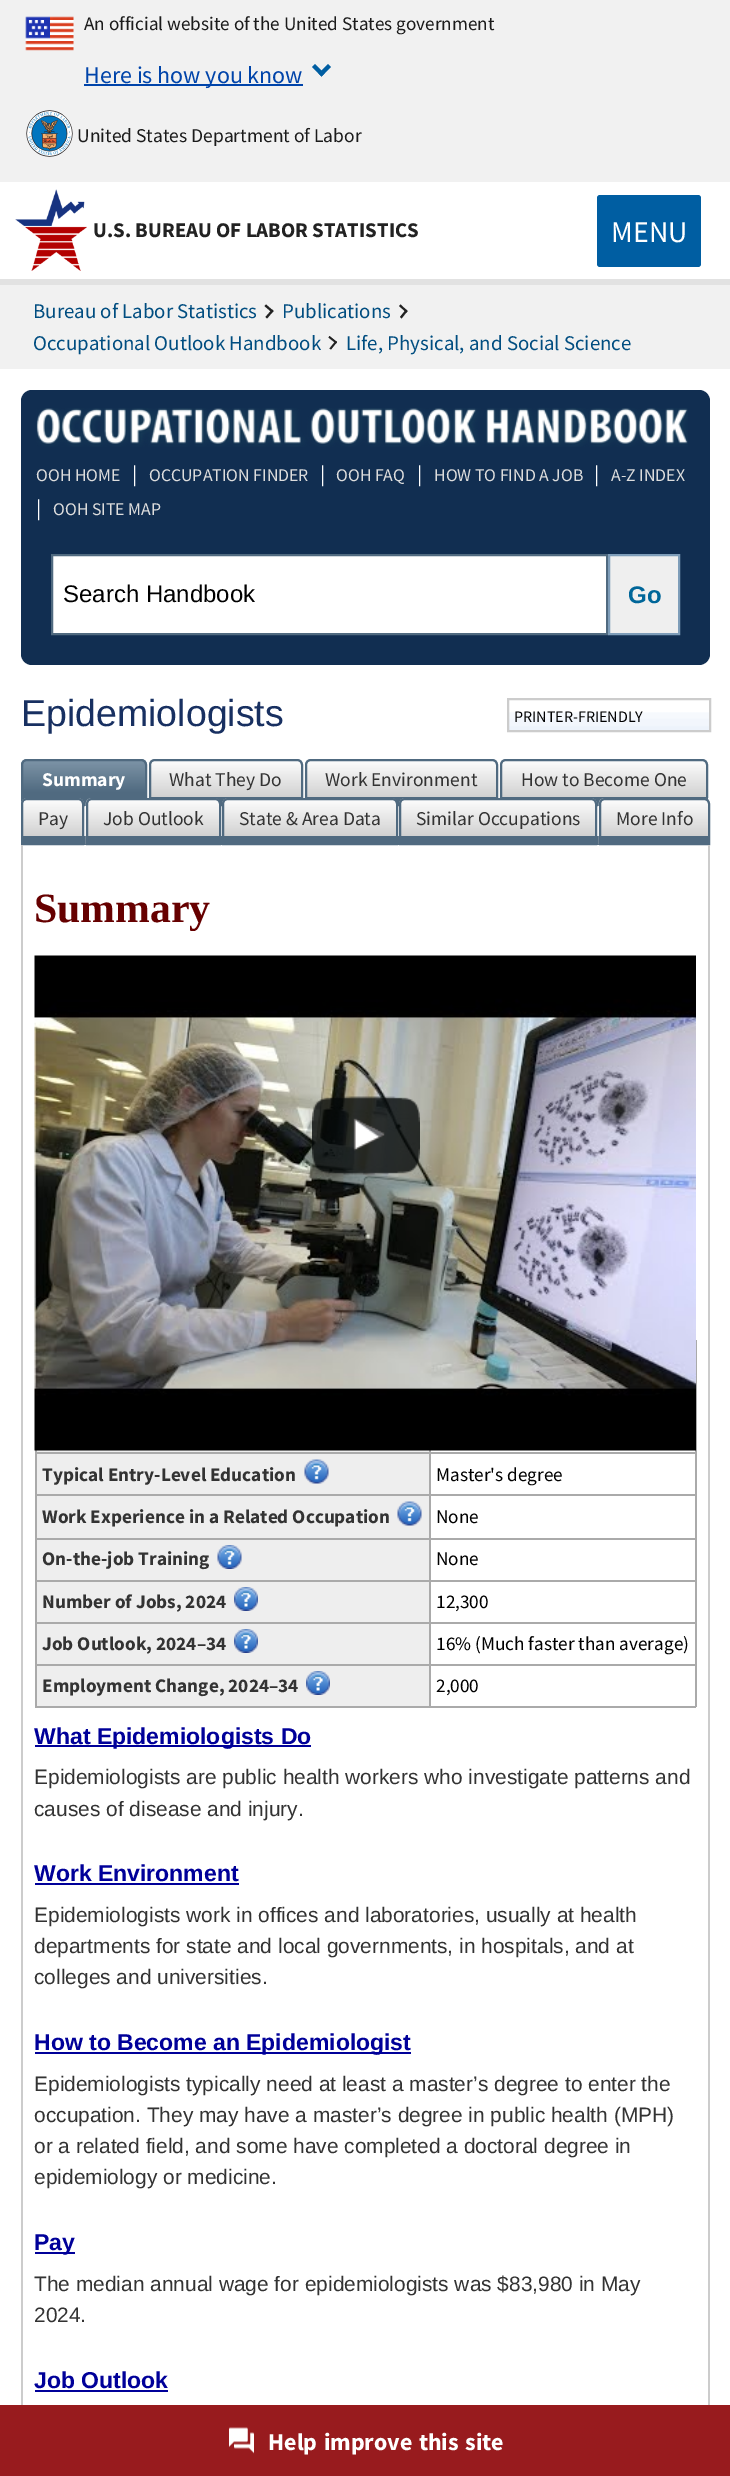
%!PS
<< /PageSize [730 2476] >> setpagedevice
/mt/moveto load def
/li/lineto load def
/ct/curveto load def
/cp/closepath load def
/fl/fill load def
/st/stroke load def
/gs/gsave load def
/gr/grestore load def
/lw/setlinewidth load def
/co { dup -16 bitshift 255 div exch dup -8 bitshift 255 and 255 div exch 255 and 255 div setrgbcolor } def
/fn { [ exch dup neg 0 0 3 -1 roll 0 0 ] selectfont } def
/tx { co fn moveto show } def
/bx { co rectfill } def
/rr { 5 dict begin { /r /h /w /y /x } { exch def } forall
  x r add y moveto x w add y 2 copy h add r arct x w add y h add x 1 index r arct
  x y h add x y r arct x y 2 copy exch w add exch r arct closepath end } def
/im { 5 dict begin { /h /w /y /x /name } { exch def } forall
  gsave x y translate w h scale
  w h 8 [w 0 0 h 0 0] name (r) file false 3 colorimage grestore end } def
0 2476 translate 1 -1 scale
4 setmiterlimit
0 0 730 2476 16#FFFFFF bx
0 0 730 182 16#F1F1F1 bx
(media/1.raw) 25 16 49 35 im
84 84 219 2 16#0044AA bx
16#005EA2 co
328 64 mt 331 67 li 321.5 76.5 li 318.5 73.5 li cp fl
315 64 mt 324.5 73.5 li 321.5 76.5 li 312 67 li cp fl
(media/2.raw) 26 110 47 47 im
(media/3.raw) 15 189 72 82 im
0 279 730 6 16#E2E2E2 bx
16#005EA2 co
597 195 104 72 3 rr fl
0 285 730 84 16#F1F1F1 bx
16#222222 co
264.5 306 mt 266 304.5 li 273.5 311 li 272 312.5 li cp fl
265.5 317 mt 272 309.5 li 273.5 311 li 267 318.5 li cp fl
399 306 mt 400.5 304.5 li 407.5 311 li 406.5 312.5 li cp fl
400 317 mt 406 309.5 li 407.5 311 li 401.5 318.5 li cp fl
328.5 337.5 mt 329.5 336 li 337 342 li 336 343.5 li cp fl
329.5 348.5 mt 335.5 341 li 337 342 li 331 349.5 li cp fl
16#112E51 co
21 390 689 275 11 rr fl
(media/4.raw) 36 408 652 39 im
16#FFFFFF co
52 555 mt 607 555 li 607 634 li 52 634 li cp gs fl gr
16#506A80 co
2 lw
st
16#EFEFEF co
609 555 mt 679 555 li 679 634 li 609 634 li cp gs fl gr
16#7E9DB9 co
st
(media/5.raw) 509 712 200 18 im
16#CCCCCC co
508 699 202 32 rectstroke
84 836 515 9 16#506A80 bx
(media/6.raw) 21 759 126 45 im
27 760 mt 141 760 li 144 760 146 762 146 765 ct 146 805 li 22 805 li 22 765 li 22 762 24 760 27 760 ct cp st
(media/7.raw) 148 761 155 37 im
155 760 mt 297 760 li 300 760 302 762 302 765 ct 302 805 li 150 805 li 150 765 li 150 762 152 760 155 760 ct cp st
149 797 154 7 16#506A80 bx
(media/8.raw) 304 761 194 37 im
311 760 mt 492 760 li 495 760 497 762 497 765 ct 497 805 li 306 805 li 306 765 li 306 762 308 760 311 760 ct cp st
305 797 193 7 16#506A80 bx
(media/9.raw) 499 761 209 37 im
506 760 mt 702 760 li 705 760 707 762 707 765 ct 707 805 li 501 805 li 501 765 li 501 762 503 760 506 760 ct cp st
500 797 208 7 16#506A80 bx
(media/10.raw) 21 798 63 38 im
27 799 mt 78 799 li 81 799 83 801 83 804 ct 83 844 li 22 844 li 22 804 li 22 801 24 799 27 799 ct cp st
21 836 63 7 16#506A80 bx
(media/11.raw) 85 798 136 47 im
92 799 mt 215 799 li 218 799 220 801 220 804 ct 220 844 li 87 844 li 87 804 li 87 801 89 799 92 799 ct cp st
86 836 135 7 16#506A80 bx
(media/12.raw) 222 798 176 38 im
228 799 mt 392 799 li 395 799 397 801 397 804 ct 397 844 li 223 844 li 223 804 li 223 801 225 799 228 799 ct cp st
(media/13.raw) 399 798 198 38 im
405 799 mt 591 799 li 594 799 596 801 596 804 ct 596 844 li 400 844 li 400 804 li 400 801 402 799 405 799 ct cp st
(media/14.raw) 598 798 112 47 im
605 799 mt 704 799 li 707 799 709 801 709 804 ct 709 844 li 600 844 li 600 804 li 600 801 602 799 605 799 ct cp st
599 836 111 7 16#506A80 bx
708 845 2 1560 16#CCCCCC bx
21 845 2 1560 16#CCCCCC bx
695 1340 2 367 16#AAAAAA bx
35 1706 661 2 16#AAAAAA bx
35 1450 2 257 16#AAAAAA bx
37 1450 392 2 16#EEEEEE bx
429 1452 267 2 16#AAAAAA bx
429 1494 267 2 16#AAAAAA bx
429 1538 267 2 16#AAAAAA bx
429 1580 267 2 16#AAAAAA bx
429 1622 267 2 16#AAAAAA bx
429 1664 267 2 16#AAAAAA bx
429 1664 2 43 16#AAAAAA bx
35 1664 396 2 16#AAAAAA bx
429 1622 2 43 16#AAAAAA bx
35 1622 396 2 16#AAAAAA bx
429 1580 2 43 16#AAAAAA bx
35 1580 396 2 16#AAAAAA bx
429 1538 2 43 16#AAAAAA bx
35 1538 396 2 16#AAAAAA bx
429 1494 2 45 16#AAAAAA bx
35 1494 396 2 16#AAAAAA bx
429 1452 2 44 16#AAAAAA bx
35 1452 396 2 16#AAAAAA bx
429 1450 2 4 16#AAAAAA bx
(media/15.raw) 34 955 662 496 im
(media/16.raw) 312 1096 108 79 im
37 1454 392 40 16#EEEEEE bx
(media/17.raw) 304 1459 25 25 im
37 1496 392 42 16#EEEEEE bx
(media/18.raw) 397 1501 25 25 im
37 1540 392 40 16#EEEEEE bx
(media/19.raw) 217 1545 25 24 im
37 1582 392 40 16#EEEEEE bx
(media/20.raw) 234 1587 24 24 im
37 1624 392 40 16#EEEEEE bx
(media/20.raw) 234 1629 24 24 im
37 1666 392 40 16#EEEEEE bx
(media/21.raw) 306 1671 24 24 im
35 1745 276 2 16#000099 bx
35 1883 204 2 16#000099 bx
35 2052 376 2 16#000099 bx
35 2252 40 2 16#000099 bx
35 2390 133 2 16#000099 bx
0 2405 730 71 16#981B1E bx
(media/22.raw) 229 2427 25 27 im
(An official website of the United States government) 84 30 /SourceSansPro-Regular 19.2 16#1B1B1B tx
(Here is how you know) 84 83 /SourceSansPro-Regular 24 16#0044AA tx
(United States Department of Labor) 77 142 /SourceSansPro-Regular 19.5 16#1B1B1B tx
(U.S. BUREAU OF LABOR STATISTICS) 93 237 /SourceSansPro-Bold 20.9 16#222222 tx
(MENU) 611 242 /SourceSansPro-Regular 30 16#FFFFFF tx
(Bureau of Labor Statistics) 33 318 /SourceSansPro-Regular 20.9 16#004D80 tx
(Publications) 282 318 /SourceSansPro-Regular 20.9 16#004D80 tx
(Occupational Outlook Handbook) 33 350 /SourceSansPro-Regular 20.9 16#004D80 tx
(Life, Physical, and Social Science) 346 350 /SourceSansPro-Regular 20.9 16#004D80 tx
(OOH HOME) 36 481 /SourceSansPro-Regular 17.75 16#DDDDDD tx
(|) 132 481 /SourceSansPro-Regular 20.9 16#FFFFFF tx
(OCCUPATION FINDER) 149 481 /SourceSansPro-Regular 17.75 16#DDDDDD tx
(|) 320 481 /SourceSansPro-Regular 20.9 16#FFFFFF tx
(OOH FAQ) 336 481 /SourceSansPro-Regular 17.75 16#DDDDDD tx
(|) 417 481 /SourceSansPro-Regular 20.9 16#FFFFFF tx
(HOW TO FIND A JOB) 434 481 /SourceSansPro-Regular 17.75 16#DDDDDD tx
(|) 594 481 /SourceSansPro-Regular 20.9 16#FFFFFF tx
(A-Z INDEX) 611 481 /SourceSansPro-Regular 17.75 16#DDDDDD tx
(|) 36 515 /SourceSansPro-Regular 20.9 16#FFFFFF tx
(OOH SITE MAP) 53 515 /SourceSansPro-Regular 17.75 16#DDDDDD tx
(Search Handbook) 63 602 /LiberationSans-Regular 24 16#000000 tx
(Go) 628 603 /LiberationSans-Bold 24 16#006699 tx
(Epidemiologists) 21 726 /LiberationSans-Regular 37.5 16#183061 tx
(PRINTER-FRIENDLY) 514 722 /SourceSansPro-Regular 16 16#000000 tx
(Summary) 42 786 /SourceSansPro-Bold 19.5 16#FFFFFF tx
(What They Do) 169 786 /SourceSansPro-Regular 19.5 16#333333 tx
(Work Environment) 325 786 /SourceSansPro-Regular 19.5 16#333333 tx
(How to Become One) 521 786 /SourceSansPro-Regular 19.5 16#333333 tx
(Pay) 38 825 /SourceSansPro-Regular 19.5 16#333333 tx
(Job Outlook) 103 825 /SourceSansPro-Regular 19.5 16#333333 tx
(State & Area Data) 239 825 /SourceSansPro-Regular 19.5 16#333333 tx
(Similar Occupations) 416 825 /SourceSansPro-Regular 19.5 16#333333 tx
(More Info) 616 825 /SourceSansPro-Regular 19.5 16#333333 tx
(Summary) 34 922 /LiberationSerif-Bold 41.75 16#660000 tx
(Typical Entry-Level Education) 42 1481 /SourceSansPro-Bold 19.25 16#333333 tx
(Master's degree) 436 1481 /SourceSansPro-Regular 19.25 16#000000 tx
(Work Experience in a Related Occupation) 42 1523 /SourceSansPro-Bold 19.25 16#333333 tx
(None) 436 1523 /SourceSansPro-Regular 19.25 16#000000 tx
(On-the-job Training) 42 1565 /SourceSansPro-Bold 19.25 16#333333 tx
(None) 436 1565 /SourceSansPro-Regular 19.25 16#000000 tx
(Number of Jobs, 2024) 42 1608 /SourceSansPro-Bold 19.25 16#333333 tx
(12,300) 436 1608 /SourceSansPro-Regular 19.25 16#000000 tx
(Job Outlook, 2024–34) 42 1650 /SourceSansPro-Bold 19.25 16#333333 tx
(16% \(Much faster than average\)) 436 1650 /SourceSansPro-Regular 19.25 16#000000 tx
(Employment Change, 2024–34) 42 1692 /SourceSansPro-Bold 19.25 16#333333 tx
(2,000) 436 1692 /SourceSansPro-Regular 19.25 16#000000 tx
(What Epidemiologists Do) 34 1744 /LiberationSans-Bold 23 16#000099 tx
(Epidemiologists are public health workers who investigate patterns and) 34 1784 /LiberationSans-Regular 20.9 16#333333 tx
(causes of disease and injury.) 34 1816 /LiberationSans-Regular 20.9 16#333333 tx
(Work Environment) 34 1881 /LiberationSans-Bold 23 16#000099 tx
(Epidemiologists work in offices and laboratories, usually at health) 34 1922 /LiberationSans-Regular 20.9 16#333333 tx
(departments for state and local governments, in hospitals, and at) 34 1953 /LiberationSans-Regular 20.9 16#333333 tx
(colleges and universities.) 34 1984 /LiberationSans-Regular 20.9 16#333333 tx
(How to Become an Epidemiologist) 34 2050 /LiberationSans-Bold 23 16#000099 tx
(Epidemiologists typically need at least a master’s degree to enter the) 34 2091 /LiberationSans-Regular 20.9 16#333333 tx
(occupation. They may have a master’s degree in public health \(MPH\)) 34 2122 /LiberationSans-Regular 20.9 16#333333 tx
(or a related field, and some have completed a doctoral degree in) 34 2153 /LiberationSans-Regular 20.9 16#333333 tx
(epidemiology or medicine.) 34 2184 /LiberationSans-Regular 20.9 16#333333 tx
(Pay) 34 2250 /LiberationSans-Bold 23 16#000099 tx
(The median annual wage for epidemiologists was $83,980 in May) 34 2291 /LiberationSans-Regular 20.9 16#333333 tx
(2024.) 34 2322 /LiberationSans-Regular 20.9 16#333333 tx
(Job Outlook) 34 2388 /LiberationSans-Bold 23 16#000099 tx
/SourceSansPro-Bold 24 fn
16#FFFFFF co
268 2450 mt 1.5 0 32 (Help improve this site) widthshow
showpage
